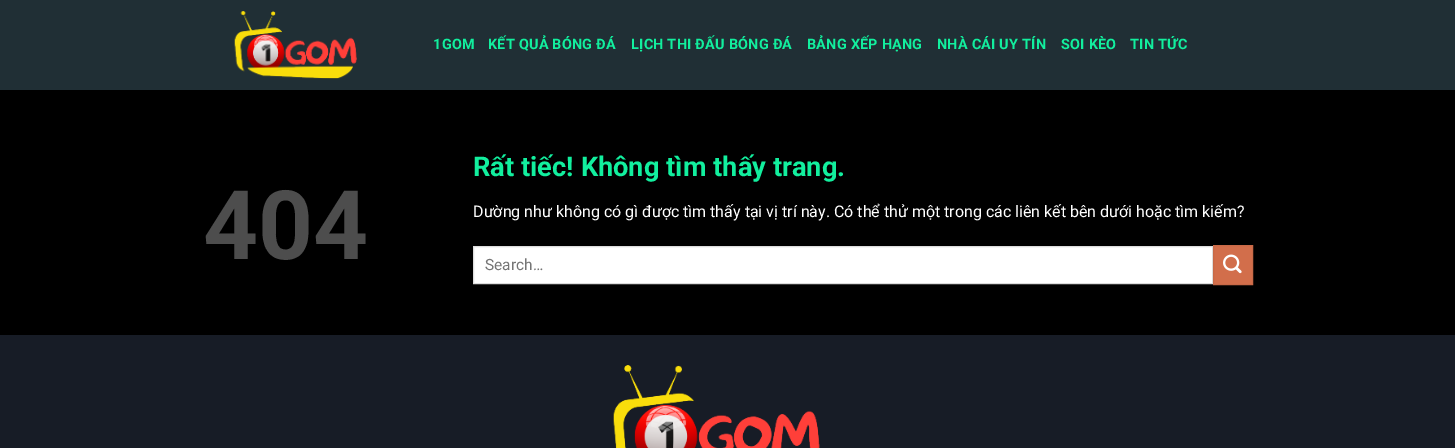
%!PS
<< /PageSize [1455 448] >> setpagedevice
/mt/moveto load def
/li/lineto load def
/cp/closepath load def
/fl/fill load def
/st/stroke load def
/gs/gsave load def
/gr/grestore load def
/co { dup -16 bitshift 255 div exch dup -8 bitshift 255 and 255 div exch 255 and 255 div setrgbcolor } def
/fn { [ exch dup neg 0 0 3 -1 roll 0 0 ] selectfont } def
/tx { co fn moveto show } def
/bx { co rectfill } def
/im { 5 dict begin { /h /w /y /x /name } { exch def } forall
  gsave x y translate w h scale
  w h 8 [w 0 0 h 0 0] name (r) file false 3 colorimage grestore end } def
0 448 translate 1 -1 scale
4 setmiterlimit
0 0 1455 448 16#000000 bx
0 0 1455 90 16#202F35 bx
(media/1.raw) 234 11 123 68 im
16#FFFFFF co
473.5 246.5 mt 1212.5 246.5 li 1212.5 283.5 li 473.5 283.5 li cp gs fl gr
16#DDDDDD co
st
16#D26E4B co
1213.5 245.5 mt 1252.5 245.5 li 1252.5 284.5 li 1213.5 284.5 li cp gs fl gr
16#C86947 co
st
(media/2.raw) 1223 254 19 20 im
0 335 1455 113 16#171C26 bx
(media/3.raw) 613 365 207 83 im
/Roboto-Bold 14.4 fn
16#12EF9E co
433 49 mt .25 0 (1GOM) ashow
488 49 mt .25 0 (KẾT QUẢ BÓNG ĐÁ) ashow
631 49 mt .25 0 (LỊCH THI ĐẤU BÓNG ĐÁ) ashow
807 49 mt .25 0 (BẢNG XẾP HẠNG) ashow
937 49 mt .25 0 (NHÀ CÁI UY TÍN) ashow
1061 49 mt .25 0 (SOI KÈO) ashow
1130 49 mt .25 0 (TIN TỨC) ashow
(404) 203 259 /Roboto-Bold 96 16#4D4D4D tx
(Rất tiếc! Không tìm thấy trang.) 473 176 /Roboto-Bold 27.25 16#12EF9E tx
(Dường như không có gì được tìm thấy tại vị trí này. Có thể thử một trong các liên kết bên dưới hoặc tìm kiếm?) 473 217 /Roboto-Regular 16 16#FFFFFF tx
(Search…) 485 270 /Roboto-Regular 15.5 16#757575 tx
showpage
